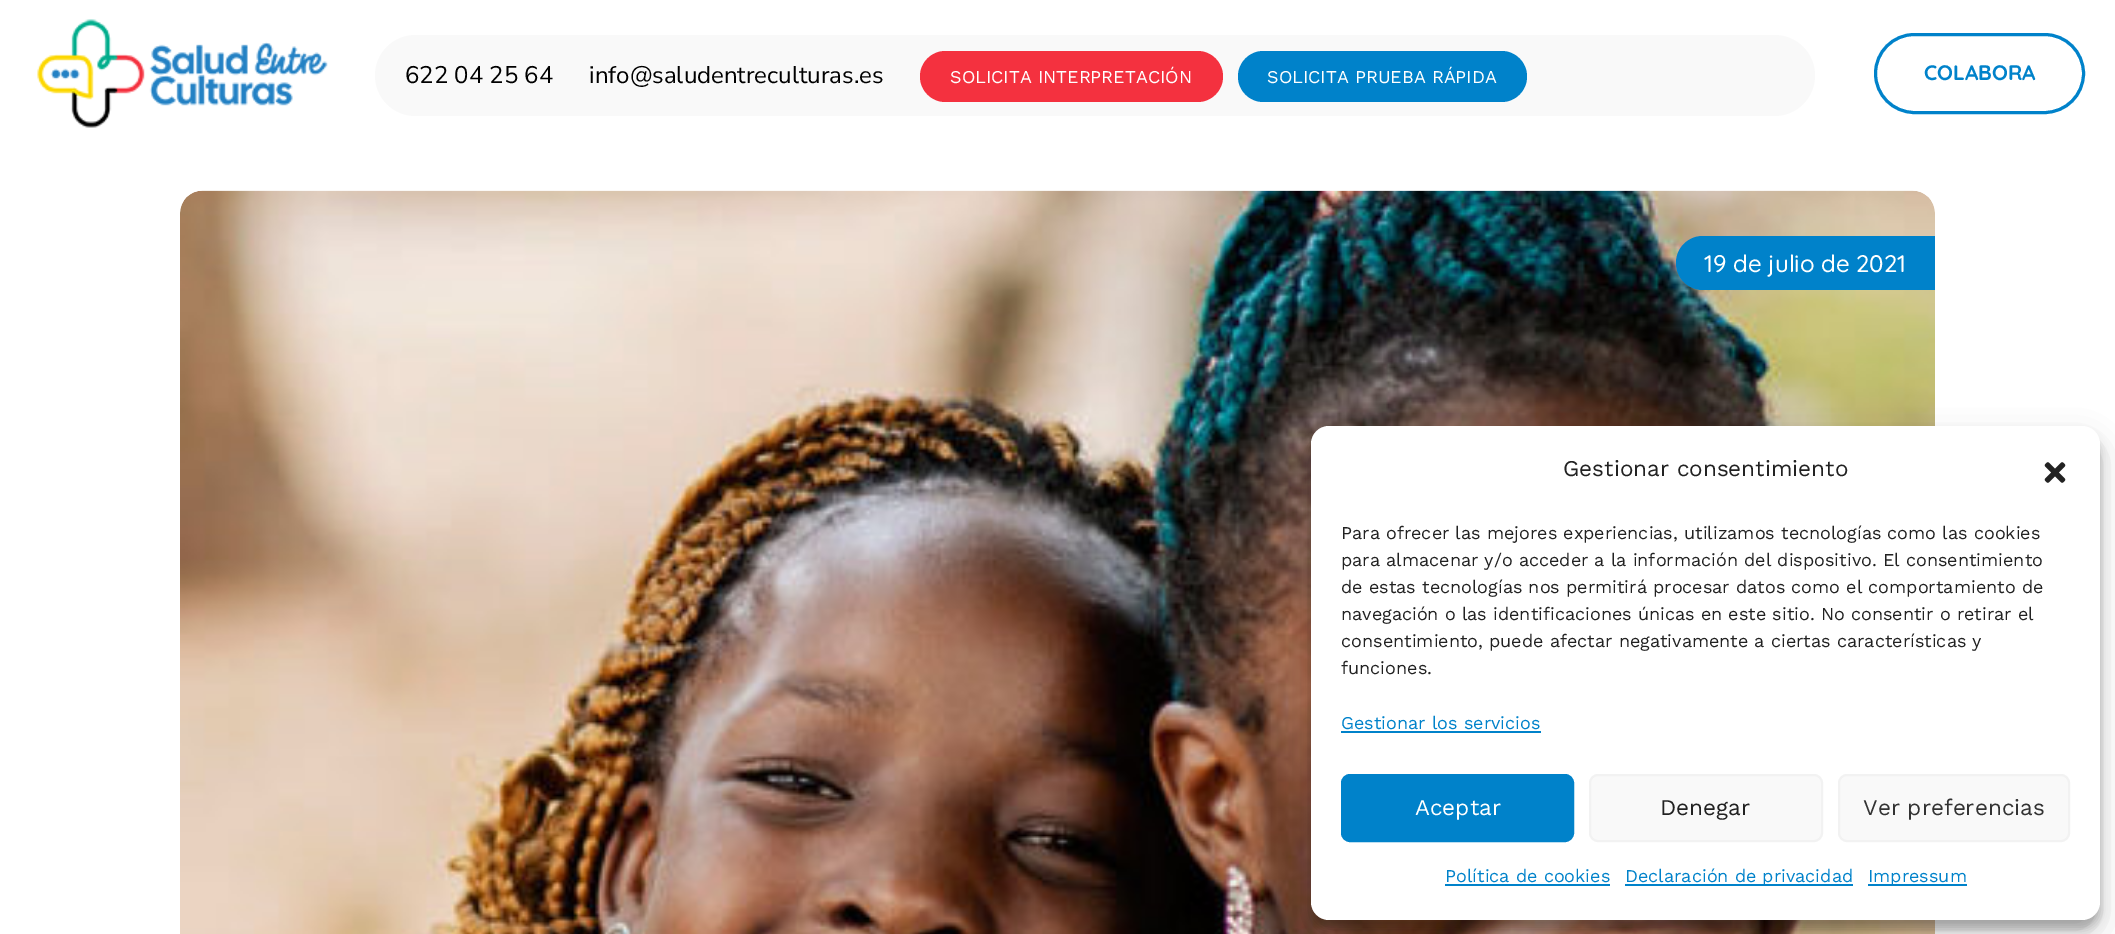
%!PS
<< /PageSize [2115 934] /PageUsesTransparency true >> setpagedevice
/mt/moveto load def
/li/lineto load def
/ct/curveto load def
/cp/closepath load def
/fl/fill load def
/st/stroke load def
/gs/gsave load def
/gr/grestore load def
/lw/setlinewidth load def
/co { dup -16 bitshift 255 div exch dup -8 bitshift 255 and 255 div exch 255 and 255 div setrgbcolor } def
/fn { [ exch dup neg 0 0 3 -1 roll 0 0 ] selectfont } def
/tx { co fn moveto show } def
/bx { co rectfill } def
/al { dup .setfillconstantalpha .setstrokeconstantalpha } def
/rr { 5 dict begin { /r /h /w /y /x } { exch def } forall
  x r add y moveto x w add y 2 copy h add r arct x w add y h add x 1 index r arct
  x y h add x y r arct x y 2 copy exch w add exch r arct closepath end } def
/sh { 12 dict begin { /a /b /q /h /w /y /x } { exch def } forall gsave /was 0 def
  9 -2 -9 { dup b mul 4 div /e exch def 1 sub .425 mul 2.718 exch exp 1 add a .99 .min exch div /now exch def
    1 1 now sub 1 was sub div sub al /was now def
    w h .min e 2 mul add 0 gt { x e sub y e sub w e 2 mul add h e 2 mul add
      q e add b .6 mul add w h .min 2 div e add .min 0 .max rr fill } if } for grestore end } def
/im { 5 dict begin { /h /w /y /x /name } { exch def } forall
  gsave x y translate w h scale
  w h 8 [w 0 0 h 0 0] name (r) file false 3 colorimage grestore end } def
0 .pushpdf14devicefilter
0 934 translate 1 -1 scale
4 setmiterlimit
0 0 2115 934 16#FFFFFF bx
(media/1.raw) 37 19 291 109 im
16#F9F9F9 co
375 35 1440 81 40.5 rr fl
16#F4313F co
920 51 303 51 25.5 rr fl
16#0082CA co
1238 51 289 51 25.5 rr fl
3 lw
1875.5 34.5 208 78 39 rr st
(media/2.raw) 180 190 1755 744 im
1703 236 mt 1935 236 li 1935 290 li 1703 290 li 1688 290 1676 278 1676 263 ct 1676 248 1688 236 1703 236 ct cp fl
16#000000 co
1311 435 789 494 18 4.5 .23 sh
1311 441 789 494 18 15 .19 sh
16#FFFFFF co
1311 426 789 494 18 rr fl
(media/3.raw) 2044 462 22 21 im
1341 731 200 2 16#0082CA bx
1342 775 231 66 8 rr gs fl gr
2 lw
st
16#F9F9F9 co
1590 775 232 66 8 rr gs fl gr
16#F2F2F2 co
st
16#F9F9F9 co
1839 775 230 66 8 rr gs fl gr
16#F2F2F2 co
st
1445 884 165 2 16#0082CA bx
1625 884 228 2 16#0082CA bx
1868 884 99 2 16#0082CA bx
(622 04 25 64) 405 83 /NunitoSans-Regular 24 16#000000 tx
(info@saludentreculturas.es) 589 83 /NunitoSans-Regular 24 16#000000 tx
(SOLICITA INTERPRETACIÓN) 950 83 /WorkSans-Regular 18 16#FFFFFF tx
(SOLICITA PRUEBA RÁPIDA) 1267 83 /WorkSans-Regular 18 16#FFFFFF tx
(COLABORA) 1924 80 /Quicksand-Bold 21 16#0082CA tx
(19 de julio de 2021) 1704 272 /Quicksand-Medium 24 16#FFFFFF tx
(Gestionar consentimiento) 1563 476 /WorkSans-Regular 22.5 16#222222 tx
(Para ofrecer las mejores experiencias, utilizamos tecnologías como las cookies) 1341 539 /WorkSans-Regular 18 16#222222 tx
(para almacenar y/o acceder a la información del dispositivo. El consentimiento) 1341 566 /WorkSans-Regular 18 16#222222 tx
(de estas tecnologías nos permitirá procesar datos como el comportamiento de) 1341 593 /WorkSans-Regular 18 16#222222 tx
(navegación o las identificaciones únicas en este sitio. No consentir o retirar el) 1341 620 /WorkSans-Regular 18 16#222222 tx
(consentimiento, puede afectar negativamente a ciertas características y) 1341 647 /WorkSans-Regular 18 16#222222 tx
(funciones.) 1341 674 /WorkSans-Regular 18 16#222222 tx
(Gestionar los servicios) 1341 729 /WorkSans-Regular 18 16#0082CA tx
(Aceptar) 1415 815 /WorkSans-Regular 22.5 16#FFFFFF tx
(Denegar) 1660 815 /WorkSans-Regular 22.5 16#222222 tx
(Ver preferencias) 1863 815 /WorkSans-Regular 22.5 16#333333 tx
(Política de cookies) 1445 882 /WorkSans-Regular 18 16#0082CA tx
(Declaración de privacidad) 1625 882 /WorkSans-Regular 18 16#0082CA tx
(Impressum) 1868 882 /WorkSans-Regular 18 16#0082CA tx
.poppdf14devicefilter showpage
